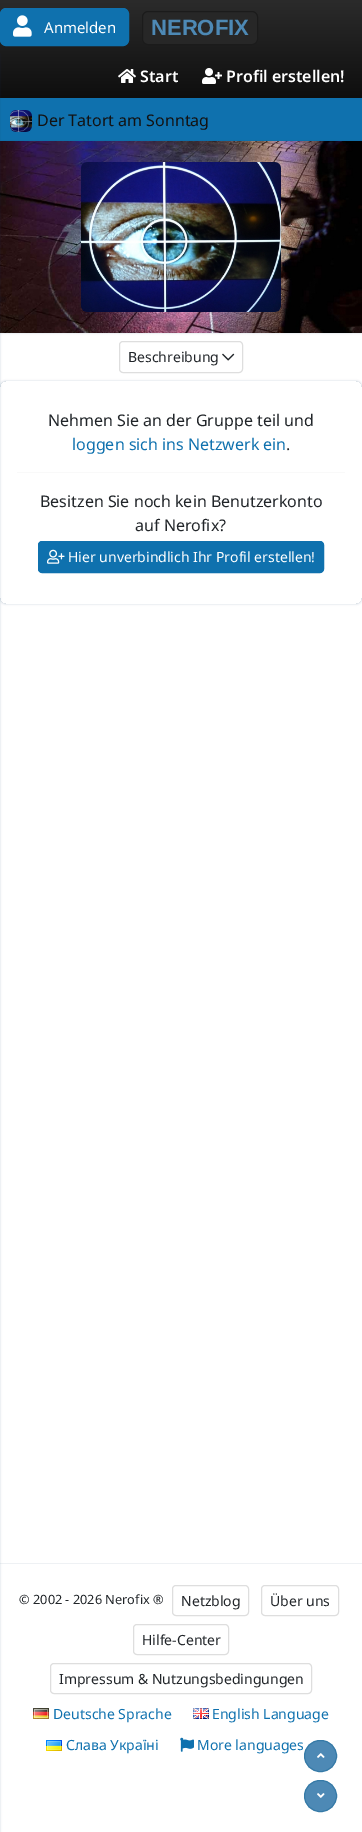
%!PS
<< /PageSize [362 1832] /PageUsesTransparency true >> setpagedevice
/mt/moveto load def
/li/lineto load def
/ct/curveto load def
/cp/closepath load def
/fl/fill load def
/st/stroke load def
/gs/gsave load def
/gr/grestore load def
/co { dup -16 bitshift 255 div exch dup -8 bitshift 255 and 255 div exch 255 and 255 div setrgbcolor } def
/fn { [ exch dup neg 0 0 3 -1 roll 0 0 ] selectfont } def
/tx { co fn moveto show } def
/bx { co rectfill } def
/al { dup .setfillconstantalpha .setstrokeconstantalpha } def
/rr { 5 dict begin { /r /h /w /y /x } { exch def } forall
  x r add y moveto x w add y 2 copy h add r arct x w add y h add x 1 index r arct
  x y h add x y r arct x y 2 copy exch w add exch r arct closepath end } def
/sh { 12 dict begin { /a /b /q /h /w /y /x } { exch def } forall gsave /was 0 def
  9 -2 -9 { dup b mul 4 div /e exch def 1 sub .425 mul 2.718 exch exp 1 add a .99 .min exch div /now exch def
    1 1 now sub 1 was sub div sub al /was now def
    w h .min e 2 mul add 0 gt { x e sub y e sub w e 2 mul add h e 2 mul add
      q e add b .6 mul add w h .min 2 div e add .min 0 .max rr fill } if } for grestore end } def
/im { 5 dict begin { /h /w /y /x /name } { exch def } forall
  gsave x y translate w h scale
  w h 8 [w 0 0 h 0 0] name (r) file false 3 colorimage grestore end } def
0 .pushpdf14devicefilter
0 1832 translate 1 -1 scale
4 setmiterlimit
0 0 362 1832 16#FFFFFF bx
gs 0 0 mt 362 0 li 362 98 li 0 98 li cp clip newpath
<< /ShadingType 2 /ColorSpace /DeviceRGB /Coords [181 0 181 98] /Extend [true true] /Function << /FunctionType 2 /Domain [0 1] /C0 [.169 .169 .169] /C1 [.055 .055 .055] /N 1 >> >> shfill gr
16#0F71AE co
.5 8.5 128 37 5.5 rr gs fl gr
st
(media/1.raw) 13 15 19 22 im
16#272727 co
142.5 11.5 115 33 5.5 rr gs fl gr
16#1B1B1B co
st
(media/2.raw) 118 69 18 14 im
(media/3.raw) 202 68 20 16 im
0 98 362 43 16#0F71AE bx
16#0A365A co
0 141 362 192 0 1 .2 sh
(media/5.raw) 0 141 362 192 im
-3 54 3 1778 0 1 .2 sh
(media/4.raw) 10 110 22 22 im
(media/6.raw) 81 162 200 150 im
16#DEDEDE co
119.5 341.5 123 31 3.5 rr st
(media/7.raw) 222 353 13 8 im
gs
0 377 mt 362 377 li 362 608 li 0 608 li cp 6 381 mt 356 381 li 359.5 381 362 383.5 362 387 ct 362 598 li 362 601.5 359.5 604 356 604 ct 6 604 li 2.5 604 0 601.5 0 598 ct 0 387 li 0 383.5 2.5 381 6 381 ct cp eoclip newpath
16#0A365A co
0 381 362 223 6 1 .2 sh
gr
17 472 328 1 16#F9F9F9 bx
16#0F71AE co
38.5 541.5 285 31 3.5 rr gs fl gr
st
(media/8.raw) 47 549 18 15 im
gs
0 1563 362 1 rectclip
16#0A365A co
0 1564 362 214 0 1 .2 sh
gr
16#DEDEDE co
172.5 1585.5 76 30 3.5 rr st
261.5 1585.5 77 30 3.5 rr st
133.5 1624.5 95 30 3.5 rr st
50.5 1663.5 261 30 3.5 rr st
(media/9.raw) 33 1708 16 11 im
(media/10.raw) 193 1708 16 11 im
(media/11.raw) 46 1740 16 11 im
(media/12.raw) 180 1737 14 15 im
16#4D89B5 co
304.5 1740.5 32 31 15.5 rr gs fl gr
16#357AA7 co
st
(media/13.raw) 317 1753 8 5 im
16#4D89B5 co
304.5 1780.5 32 31 15.5 rr gs fl gr
16#357AA7 co
st
(media/14.raw) 317 1793 8 5 im
(Anmelden) 44 33 /NotoSans-Regular 15 16#FFFFFF tx
(NEROFIX) 151 35 /LiberationSans-Bold 22 16#4D89B5 tx
(Start) 140 82 /NotoSans-SemiBold 16 16#FFFFFF tx
(Profil erstellen!) 226 82 /NotoSans-SemiBold 16 16#FFFFFF tx
(Der Tatort am Sonntag) 37 126 /NotoSans-Regular 16 16#121212 tx
(Beschreibung) 128 362 /NotoSans-Regular 14 16#212529 tx
(Nehmen Sie an der Gruppe teil und) 48 426 /NotoSans-Regular 16 16#212529 tx
(loggen sich ins Netzwerk ein) 72 450 /NotoSans-Regular 16 16#0F71AE tx
(.) 286 450 /NotoSans-Regular 16 16#212529 tx
(Besitzen Sie noch kein Benutzerkonto) 40 507 /NotoSans-Regular 16 16#212529 tx
(auf Nerofix?) 135 531 /NotoSans-Regular 16 16#212529 tx
(Hier unverbindlich Ihr Profil erstellen!) 68 562 /NotoSans-Regular 14 16#FFFFFF tx
(© 2002 - 2026 Nerofix ®) 19 1604 /NotoSans-Regular 12.75 16#212529 tx
(Netzblog) 181 1606 /NotoSans-Regular 14 16#212529 tx
(Über uns) 270 1606 /NotoSans-Regular 14 16#212529 tx
(Hilfe-Center) 142 1645 /NotoSans-Regular 14 16#212529 tx
(Impressum & Nutzungsbedingungen) 59 1684 /NotoSans-Regular 14 16#212529 tx
(Deutsche Sprache) 53 1719 /NotoSans-Regular 14 16#0F71AE tx
(English Language) 212 1719 /NotoSans-Regular 14 16#0F71AE tx
(Слава Україні) 66 1750 /NotoSans-Regular 14 16#0F71AE tx
(More languages) 197 1750 /NotoSans-Regular 14 16#0F71AE tx
.poppdf14devicefilter showpage
